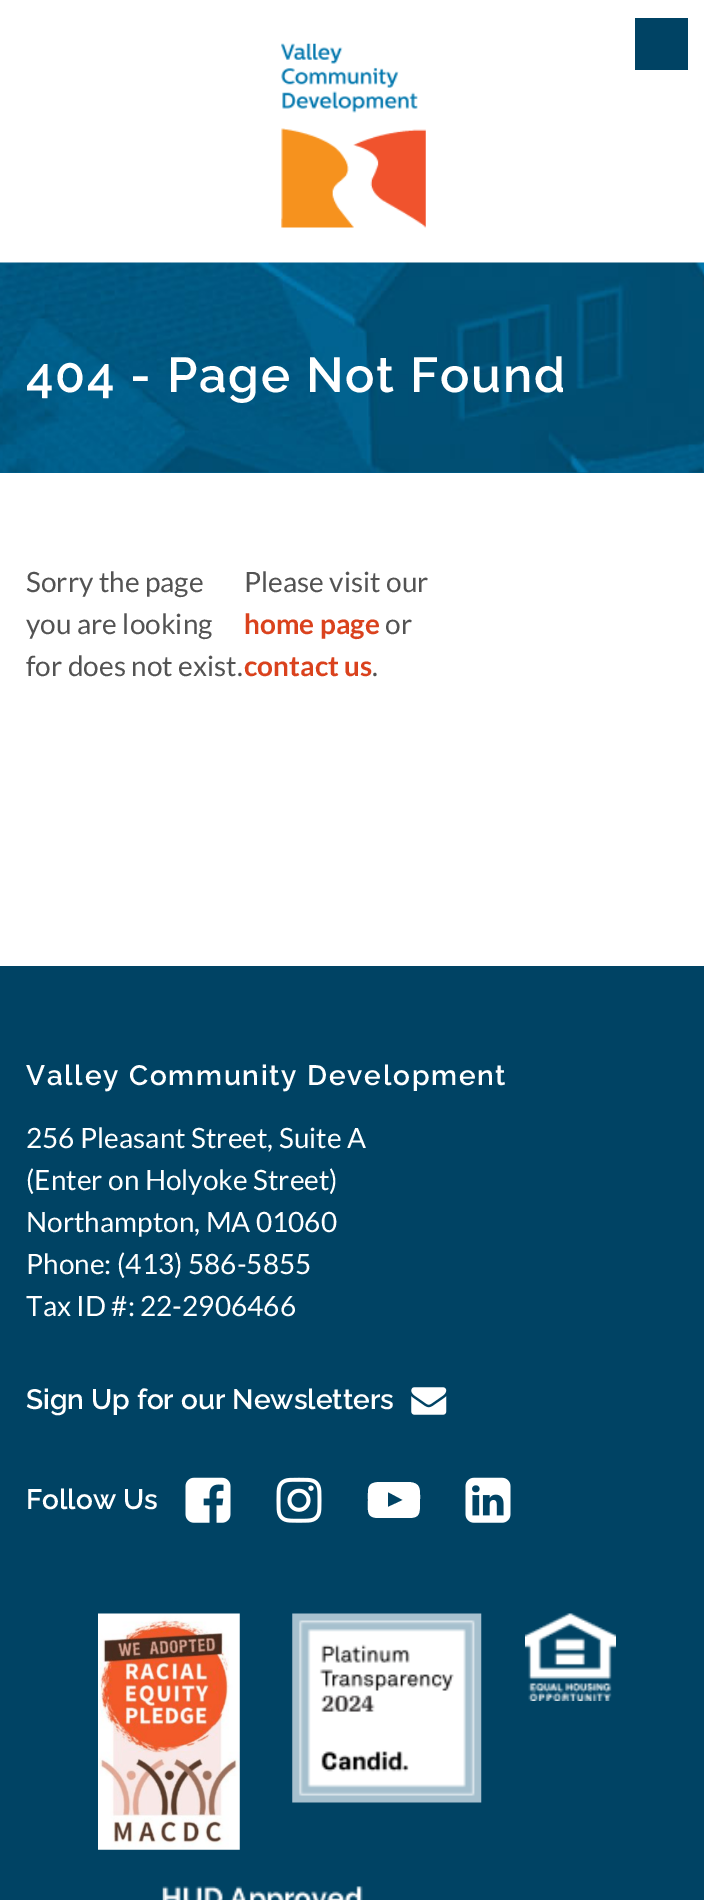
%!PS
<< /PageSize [704 1900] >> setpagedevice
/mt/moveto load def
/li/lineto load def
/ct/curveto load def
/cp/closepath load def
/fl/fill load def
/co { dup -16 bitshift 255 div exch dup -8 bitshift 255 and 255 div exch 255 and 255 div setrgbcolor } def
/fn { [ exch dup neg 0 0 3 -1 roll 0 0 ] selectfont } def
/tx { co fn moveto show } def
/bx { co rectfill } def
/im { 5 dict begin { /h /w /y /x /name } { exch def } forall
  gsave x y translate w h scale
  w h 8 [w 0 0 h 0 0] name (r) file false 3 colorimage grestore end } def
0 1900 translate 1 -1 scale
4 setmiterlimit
0 0 704 1900 16#FFFFFF bx
635 18 53 52 16#004364 bx
(media/1.raw) 281 43 145 185 im
0 472 704 1 16#00618F bx
(media/2.raw) 0 262 704 211 im
0 966 704 934 16#004364 bx
(media/3.raw) 411 1387 36 28 im
(media/4.raw) 185 1477 46 46 im
(media/5.raw) 276 1477 46 46 im
16#FFFFFF co
388 1507 mt 403 1500 li 388 1492 li cp 394 1482 mt 409 1482 li 421 1483 420 1489 420 1500 ct 420 1514 420 1518 408 1518 ct 379 1518 li 366 1518 368 1511 368 1500 ct 368 1487 367 1483 379 1482 ct cp fl
(media/6.raw) 465 1477 46 46 im
(media/7.raw) 98 1613 142 237 im
(media/8.raw) 292 1613 190 190 im
(media/9.raw) 525 1613 91 88 im
(media/10.raw) 162 1886 201 14 im
/Raleway-SemiBold 49 fn
26 392 mt 1.75 0 (404 - Page Not Found) ashow
(Sorry the page) 26 592 /Lato-Regular 28 16#535353 tx
(you are looking) 26 634 /Lato-Regular 28 16#535353 tx
(for does not exist.) 26 676 /Lato-Regular 28 16#535353 tx
(Please visit our) 244 592 /Lato-Regular 28 16#535353 tx
(home page) 244 634 /Lato-Bold 28 16#DA421D tx
(or) 385 634 /Lato-Regular 28 16#535353 tx
(contact us) 244 676 /Lato-Bold 28 16#DA421D tx
(.) 372 676 /Lato-Regular 28 16#535353 tx
/Raleway-SemiBold 28 fn
16#FFFFFF co
26 1085 mt 1.75 0 (Valley Community Development) ashow
(256 Pleasant Street, Suite A) 26 1148 /Lato-Regular 28 16#FFFFFF tx
(\(Enter on Holyoke Street\)) 26 1190 /Lato-Regular 28 16#FFFFFF tx
(Northampton, MA 01060) 26 1232 /Lato-Regular 28 16#FFFFFF tx
(Phone: \(413\) 586-5855) 26 1274 /Lato-Regular 28 16#FFFFFF tx
(Tax ID #: 22-2906466) 26 1316 /Lato-Regular 28 16#FFFFFF tx
(Sign Up for our Newsletters) 26 1409 /Raleway-SemiBold 28 16#FFFFFF tx
(Follow Us) 26 1509 /Raleway-SemiBold 28 16#FFFFFF tx
showpage
